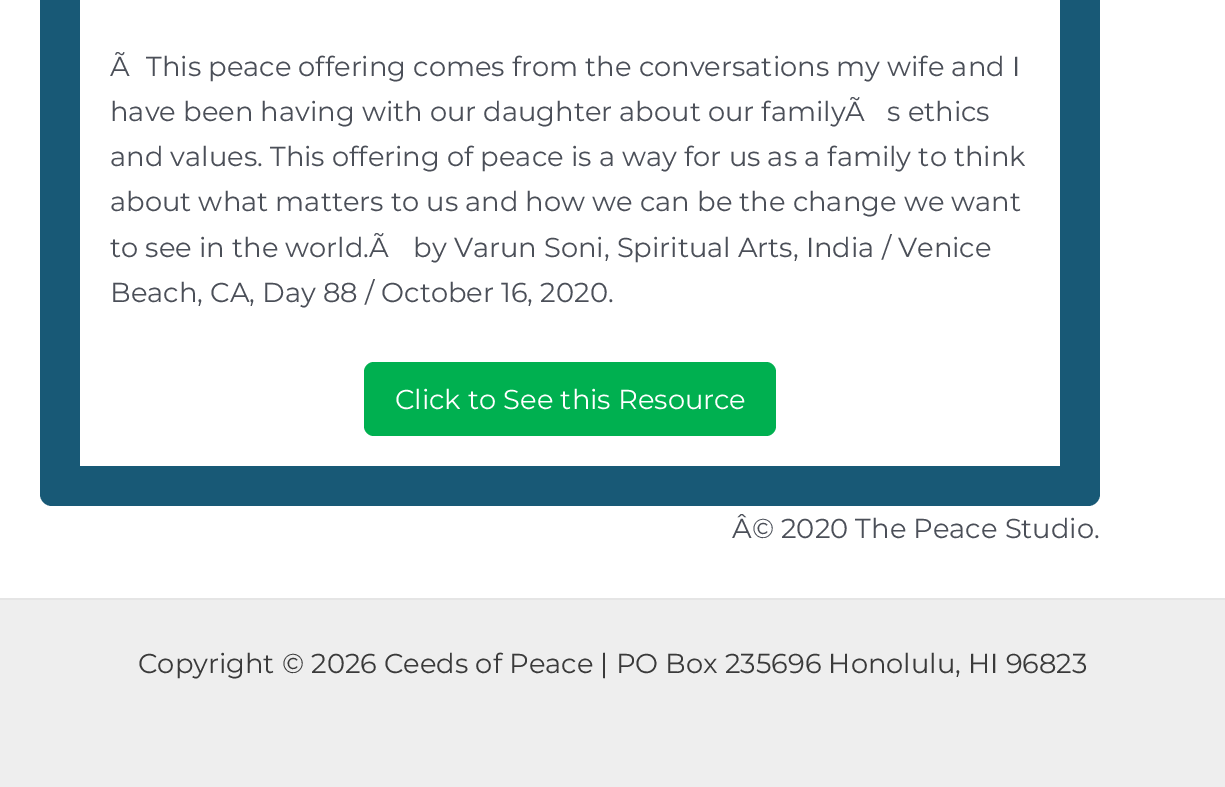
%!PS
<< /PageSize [1225 787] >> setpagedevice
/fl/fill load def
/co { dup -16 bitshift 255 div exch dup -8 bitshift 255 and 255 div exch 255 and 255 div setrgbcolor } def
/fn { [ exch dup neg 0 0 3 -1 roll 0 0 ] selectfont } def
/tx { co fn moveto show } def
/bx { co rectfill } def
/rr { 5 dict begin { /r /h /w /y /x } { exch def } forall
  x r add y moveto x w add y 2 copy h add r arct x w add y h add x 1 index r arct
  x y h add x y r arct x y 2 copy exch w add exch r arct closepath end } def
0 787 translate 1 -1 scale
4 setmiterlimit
0 0 1225 787 16#FFFFFF bx
16#185976 co
40 -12 1060 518 12 rr fl
80 0 980 466 16#FFFFFF bx
16#00B050 co
364 362 412 74 10 rr fl
0 600 1225 187 16#EEEEEE bx
0 598 1225 2 16#E5E5E5 bx
(Ã) 110 76 /Montserrat-Thin 27.35 16#4B4F58 tx
(This peace offering comes from the conversations my wife and I) 146 76 /Montserrat-Thin 27.35 16#4B4F58 tx
(have been having with our daughter about our familyÃ) 110 121 /Montserrat-Thin 27.35 16#4B4F58 tx
(s ethics) 887 121 /Montserrat-Thin 27.35 16#4B4F58 tx
(and values. This offering of peace is a way for us as a family to think) 110 166 /Montserrat-Thin 27.35 16#4B4F58 tx
(about what matters to us and how we can be the change we want) 110 211 /Montserrat-Thin 27.35 16#4B4F58 tx
(to see in the world.Ã) 110 257 /Montserrat-Thin 27.35 16#4B4F58 tx
(by Varun Soni, Spiritual Arts, India / Venice) 413 257 /Montserrat-Thin 27.35 16#4B4F58 tx
(Beach, CA, Day 88 / October 16, 2020.) 110 302 /Montserrat-Thin 27.35 16#4B4F58 tx
(Click to See this Resource) 395 409 /Montserrat-Thin 27.35 16#FFFFFF tx
(Â© 2020 The Peace Studio.) 732 538 /Montserrat-Thin 27.35 16#4B4F58 tx
(Copyright © 2026 Ceeds of Peace | PO Box 235696 Honolulu, HI 96823) 138 673 /Montserrat-Thin 27.35 16#3A3A3A tx
showpage
